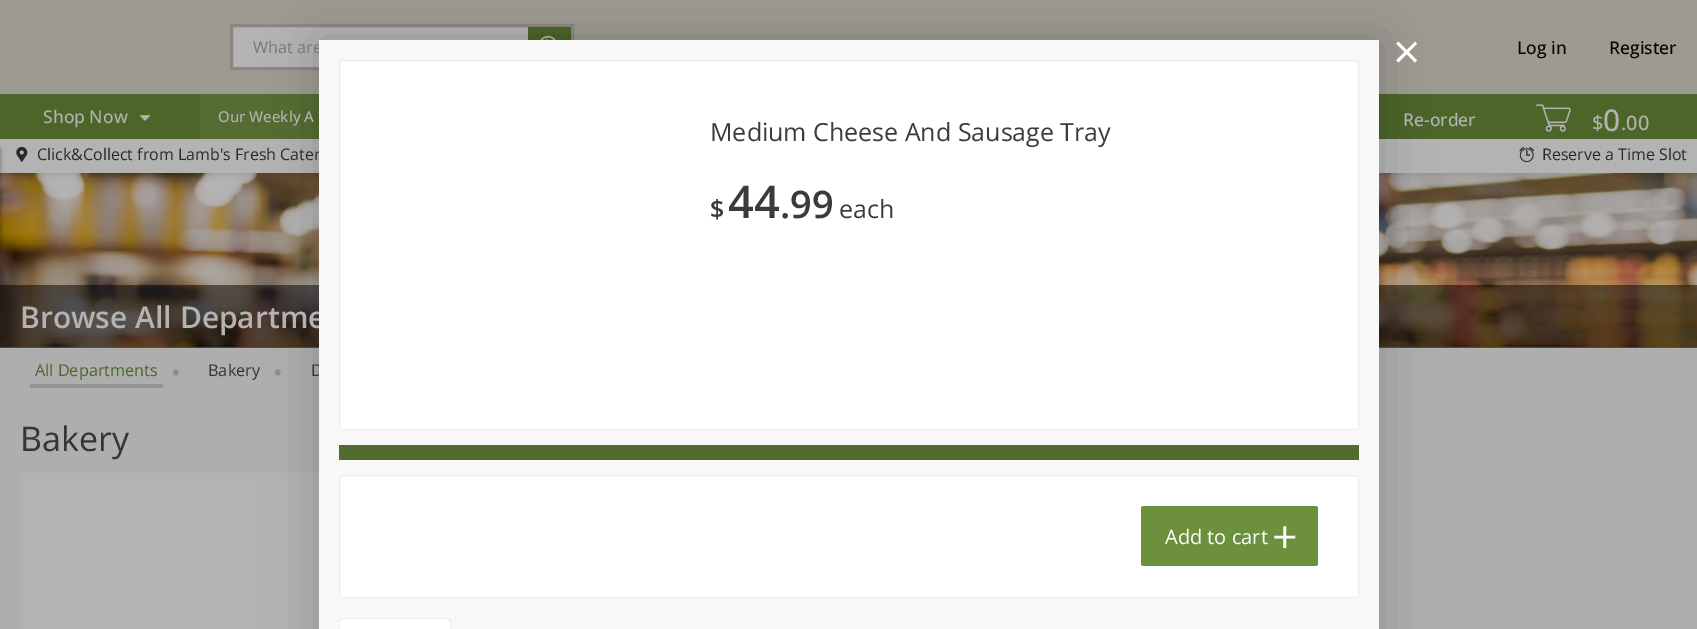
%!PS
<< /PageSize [1697 629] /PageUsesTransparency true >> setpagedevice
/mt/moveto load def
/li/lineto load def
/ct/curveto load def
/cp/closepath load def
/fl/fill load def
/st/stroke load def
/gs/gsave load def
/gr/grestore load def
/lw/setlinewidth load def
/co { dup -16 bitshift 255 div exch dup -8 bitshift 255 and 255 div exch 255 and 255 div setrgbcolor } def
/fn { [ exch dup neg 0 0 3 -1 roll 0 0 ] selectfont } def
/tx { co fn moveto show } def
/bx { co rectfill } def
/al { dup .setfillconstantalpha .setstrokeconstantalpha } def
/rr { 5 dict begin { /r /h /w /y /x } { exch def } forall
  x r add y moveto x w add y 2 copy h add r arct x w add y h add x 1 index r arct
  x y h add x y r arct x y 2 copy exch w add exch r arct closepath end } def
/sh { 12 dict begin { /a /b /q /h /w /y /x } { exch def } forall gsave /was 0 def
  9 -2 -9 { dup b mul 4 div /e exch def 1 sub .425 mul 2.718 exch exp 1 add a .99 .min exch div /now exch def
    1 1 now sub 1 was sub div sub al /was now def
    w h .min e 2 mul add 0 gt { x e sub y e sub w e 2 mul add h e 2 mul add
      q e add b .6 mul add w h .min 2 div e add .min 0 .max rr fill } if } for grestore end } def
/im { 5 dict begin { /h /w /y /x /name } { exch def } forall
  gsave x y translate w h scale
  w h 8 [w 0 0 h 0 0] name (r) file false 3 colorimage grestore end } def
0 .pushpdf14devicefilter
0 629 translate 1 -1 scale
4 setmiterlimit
0 0 1697 629 16#AEAEAE bx
0 0 1697 94 16#9D9A92 bx
233 27 295 40 16#B3B3B3 bx
16#8A8881 co
3 lw
231.5 25.5 341 43 rectstroke
528 27 43 13 16#4C6529 bx
(media/1.raw) 540 35 16 5 im
(media/6.raw) 0 173 1697 175 im
16#000000 co
0 141 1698 34 0 2.5 .1 sh
0 94 200 45 16#4C6529 bx
(media/2.raw) 140 115 10 6 im
0 139 1697 34 16#B3B3B3 bx
0.5 al
0 285 1697 63 16#000000 bx
1 al
-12 146 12 177 4 2.5 .2 sh
-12 146 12 137 4 2.5 .2 sh
200 94 1296 45 16#556D32 bx
1496 94 201 45 16#4C6529 bx
(media/3.raw) 1536 104 35 28 im
1351 94 145 45 2.5 rr fl
(media/4.raw) 16 146 12 16 im
(media/5.raw) 1519 147 15 16 im
30 384 133 4 16#929394 bx
20 473 299 156 16#B3B3B3 bx
16#000000 co
319 40 1060 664 0 25 .2 sh
(What are) 253 53 /OpenSans-Regular 16.25 16#777777 tx
(Log in) 1517 54 /OpenSans-Medium 17.5 16#040404 tx
(Register) 1609 54 /OpenSans-Medium 17.5 16#040404 tx
(Shop Now) 43 123 /OpenSans-Medium 17.5 16#B3B3B3 tx
($) 1592 130 /OpenSans-Medium 20 16#B3B3B3 tx
(0) 1603 131 /OpenSans-Medium 30 16#B3B3B3 tx
(.00) 1621 130 /OpenSans-Medium 20 16#B3B3B3 tx
(Our Weekly A) 218 122 /OpenSans-Medium 15 16#B3B3B3 tx
(Re-order) 1403 126 /OpenSans-Medium 17.5 16#B3B3B3 tx
(Click&Collect from Lamb's Fresh Cater) 37 160 /OpenSans-Regular 16 16#2A2929 tx
(Reserve a Time Slot) 1542 160 /OpenSans-Regular 16 16#2A2929 tx
(Browse All Departme) 20 328 /OpenSans-SemiBold 30 16#B3B3B3 tx
(All Departments) 35 376 /OpenSans-Regular 16.25 16#4C6529 tx
(•) 171 382 /OpenSans-Regular 26 16#8C8C8C tx
(Bakery) 208 376 /OpenSans-Regular 16.25 16#353535 tx
(•) 273 382 /OpenSans-Regular 26 16#8C8C8C tx
(D) 311 376 /OpenSans-Regular 16.25 16#353535 tx
(Bakery) 20 451 /OpenSans-Regular 34 16#353535 tx
319 40 1060 589 16#F8F8F8 bx
(×) 1393 69 /OpenSans-Regular 48 16#FFFFFF tx
339.5 60.5 1019 369 3.5 rr gs fl gr
16#EDEDED co
1 lw
st
(Medium Cheese And Sausage Tray) 710 141 /OpenSans-Regular 25 16#3C3B3B tx
($) 710 218 /OpenSans-SemiBold 25 16#3C3B3B tx
(44) 728 218 /OpenSans-SemiBold 45 16#3C3B3B tx
(.99) 780 218 /OpenSans-SemiBold 38 16#3C3B3B tx
(each) 839 218 /OpenSans-Regular 25 16#3C3B3B tx
339 445 1020 15 16#516C2C bx
16#FFFFFF co
339.5 475.5 1019 122 3.5 rr gs fl gr
16#EDEDED co
st
16#6C903B co
1141 506 177 60 2.5 rr fl
(Add to cart) 1165 544 /OpenSans-Regular 20 16#FFFFFF tx
(+) 1272 553 /OpenSans-Regular 45 16#FFFFFF tx
344 618 mt 446 618 li 449 618 451 620 451 623 ct 451 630 li 339 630 li 339 623 li 339 620 341 618 344 618 ct cp fl
0.07 al
16#000000 co
344 618 mt 340 619 li 341 620 li 344 619 li 446 619 li 449 620 li 450 619 li 446 618 li cp fl
451 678 mt 451 621 li 450 619 li 449 620 li 450 622 li 450 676 li cp fl
340 619 mt 339 621 li 339 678 li 340 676 li 340 622 li 341 620 li cp fl
.poppdf14devicefilter showpage
